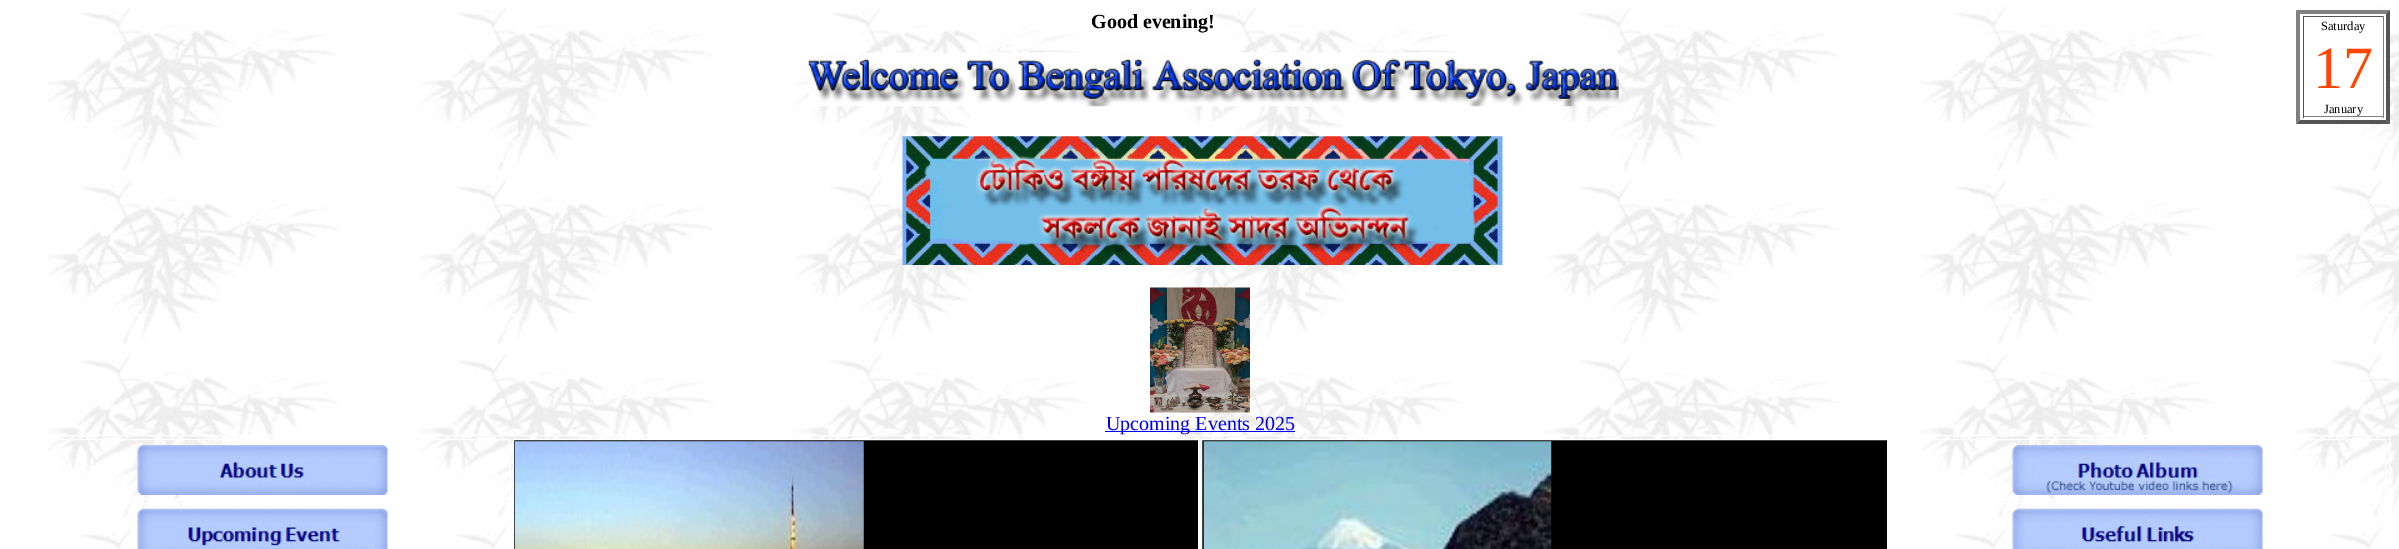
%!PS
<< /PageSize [2399 549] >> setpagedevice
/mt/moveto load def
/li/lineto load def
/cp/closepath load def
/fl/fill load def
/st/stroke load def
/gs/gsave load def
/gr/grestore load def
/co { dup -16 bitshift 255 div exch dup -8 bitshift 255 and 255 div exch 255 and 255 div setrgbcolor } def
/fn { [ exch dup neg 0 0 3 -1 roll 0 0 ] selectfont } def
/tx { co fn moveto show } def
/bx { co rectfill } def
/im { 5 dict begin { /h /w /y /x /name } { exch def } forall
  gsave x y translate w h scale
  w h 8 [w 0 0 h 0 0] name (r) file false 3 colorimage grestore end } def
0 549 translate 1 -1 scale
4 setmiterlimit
0 0 2399 549 16#FFFFFF bx
(media/1.raw) 47 7 2352 542 im
2296 10 94 114 16#FFFFFF bx
16#808080 co
2296 10 mt 2390 10 li 2386 14 li 2300 14 li cp fl
16#555555 co
2390 10 mt 2390 124 li 2386 120 li 2386 14 li cp fl
2390 124 mt 2296 124 li 2300 120 li 2386 120 li cp fl
16#808080 co
2296 124 mt 2296 10 li 2300 14 li 2300 120 li cp fl
2303 16 81 1 16#555555 bx
2383 16 1 102 16#808080 bx
2303 116 81 1 16#808080 bx
2303 16 1 102 16#555555 bx
(media/2.raw) 808 52 811 55 im
(media/3.raw) 902 136 601 129 im
(media/4.raw) 1150 287 100 126 im
1105 431 190 1 16#0000EE bx
16#FFFFFF co
10.5 435.5 2379 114 rectstroke
14.5 439.5 495 60 rectstroke
(media/5.raw) 137 445 251 50 im
16#000000 co
513.5 439.5 mt 1198.5 439.5 li 1198.5 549.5 li 513.5 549.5 li cp gs fl gr
16#FFFFFF co
st
(media/6.raw) 515 441 349 108 im
16#000000 co
1201.5 439.5 mt 1887.5 439.5 li 1887.5 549.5 li 1201.5 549.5 li cp gs fl gr
16#FFFFFF co
st
(media/7.raw) 1203 441 349 108 im
1890.5 439.5 495 60 rectstroke
(media/8.raw) 2012 445 251 50 im
14.5 503.5 495 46 rectstroke
(media/9.raw) 137 508 251 41 im
1890.5 503.5 495 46 rectstroke
(media/10.raw) 2012 508 251 41 im
(Good evening!) 1091 28 /LiberationSerif-Bold 20 16#000000 tx
(Saturday) 2321 30 /LiberationSerif-Regular 12.5 16#000000 tx
(17) 2313 88 /LiberationSerif-Regular 60 16#FF4500 tx
(January) 2324 113 /LiberationSerif-Regular 12.5 16#000000 tx
(Upcoming Events 2025) 1106 430 /LiberationSerif-Regular 20 16#0000EE tx
showpage
